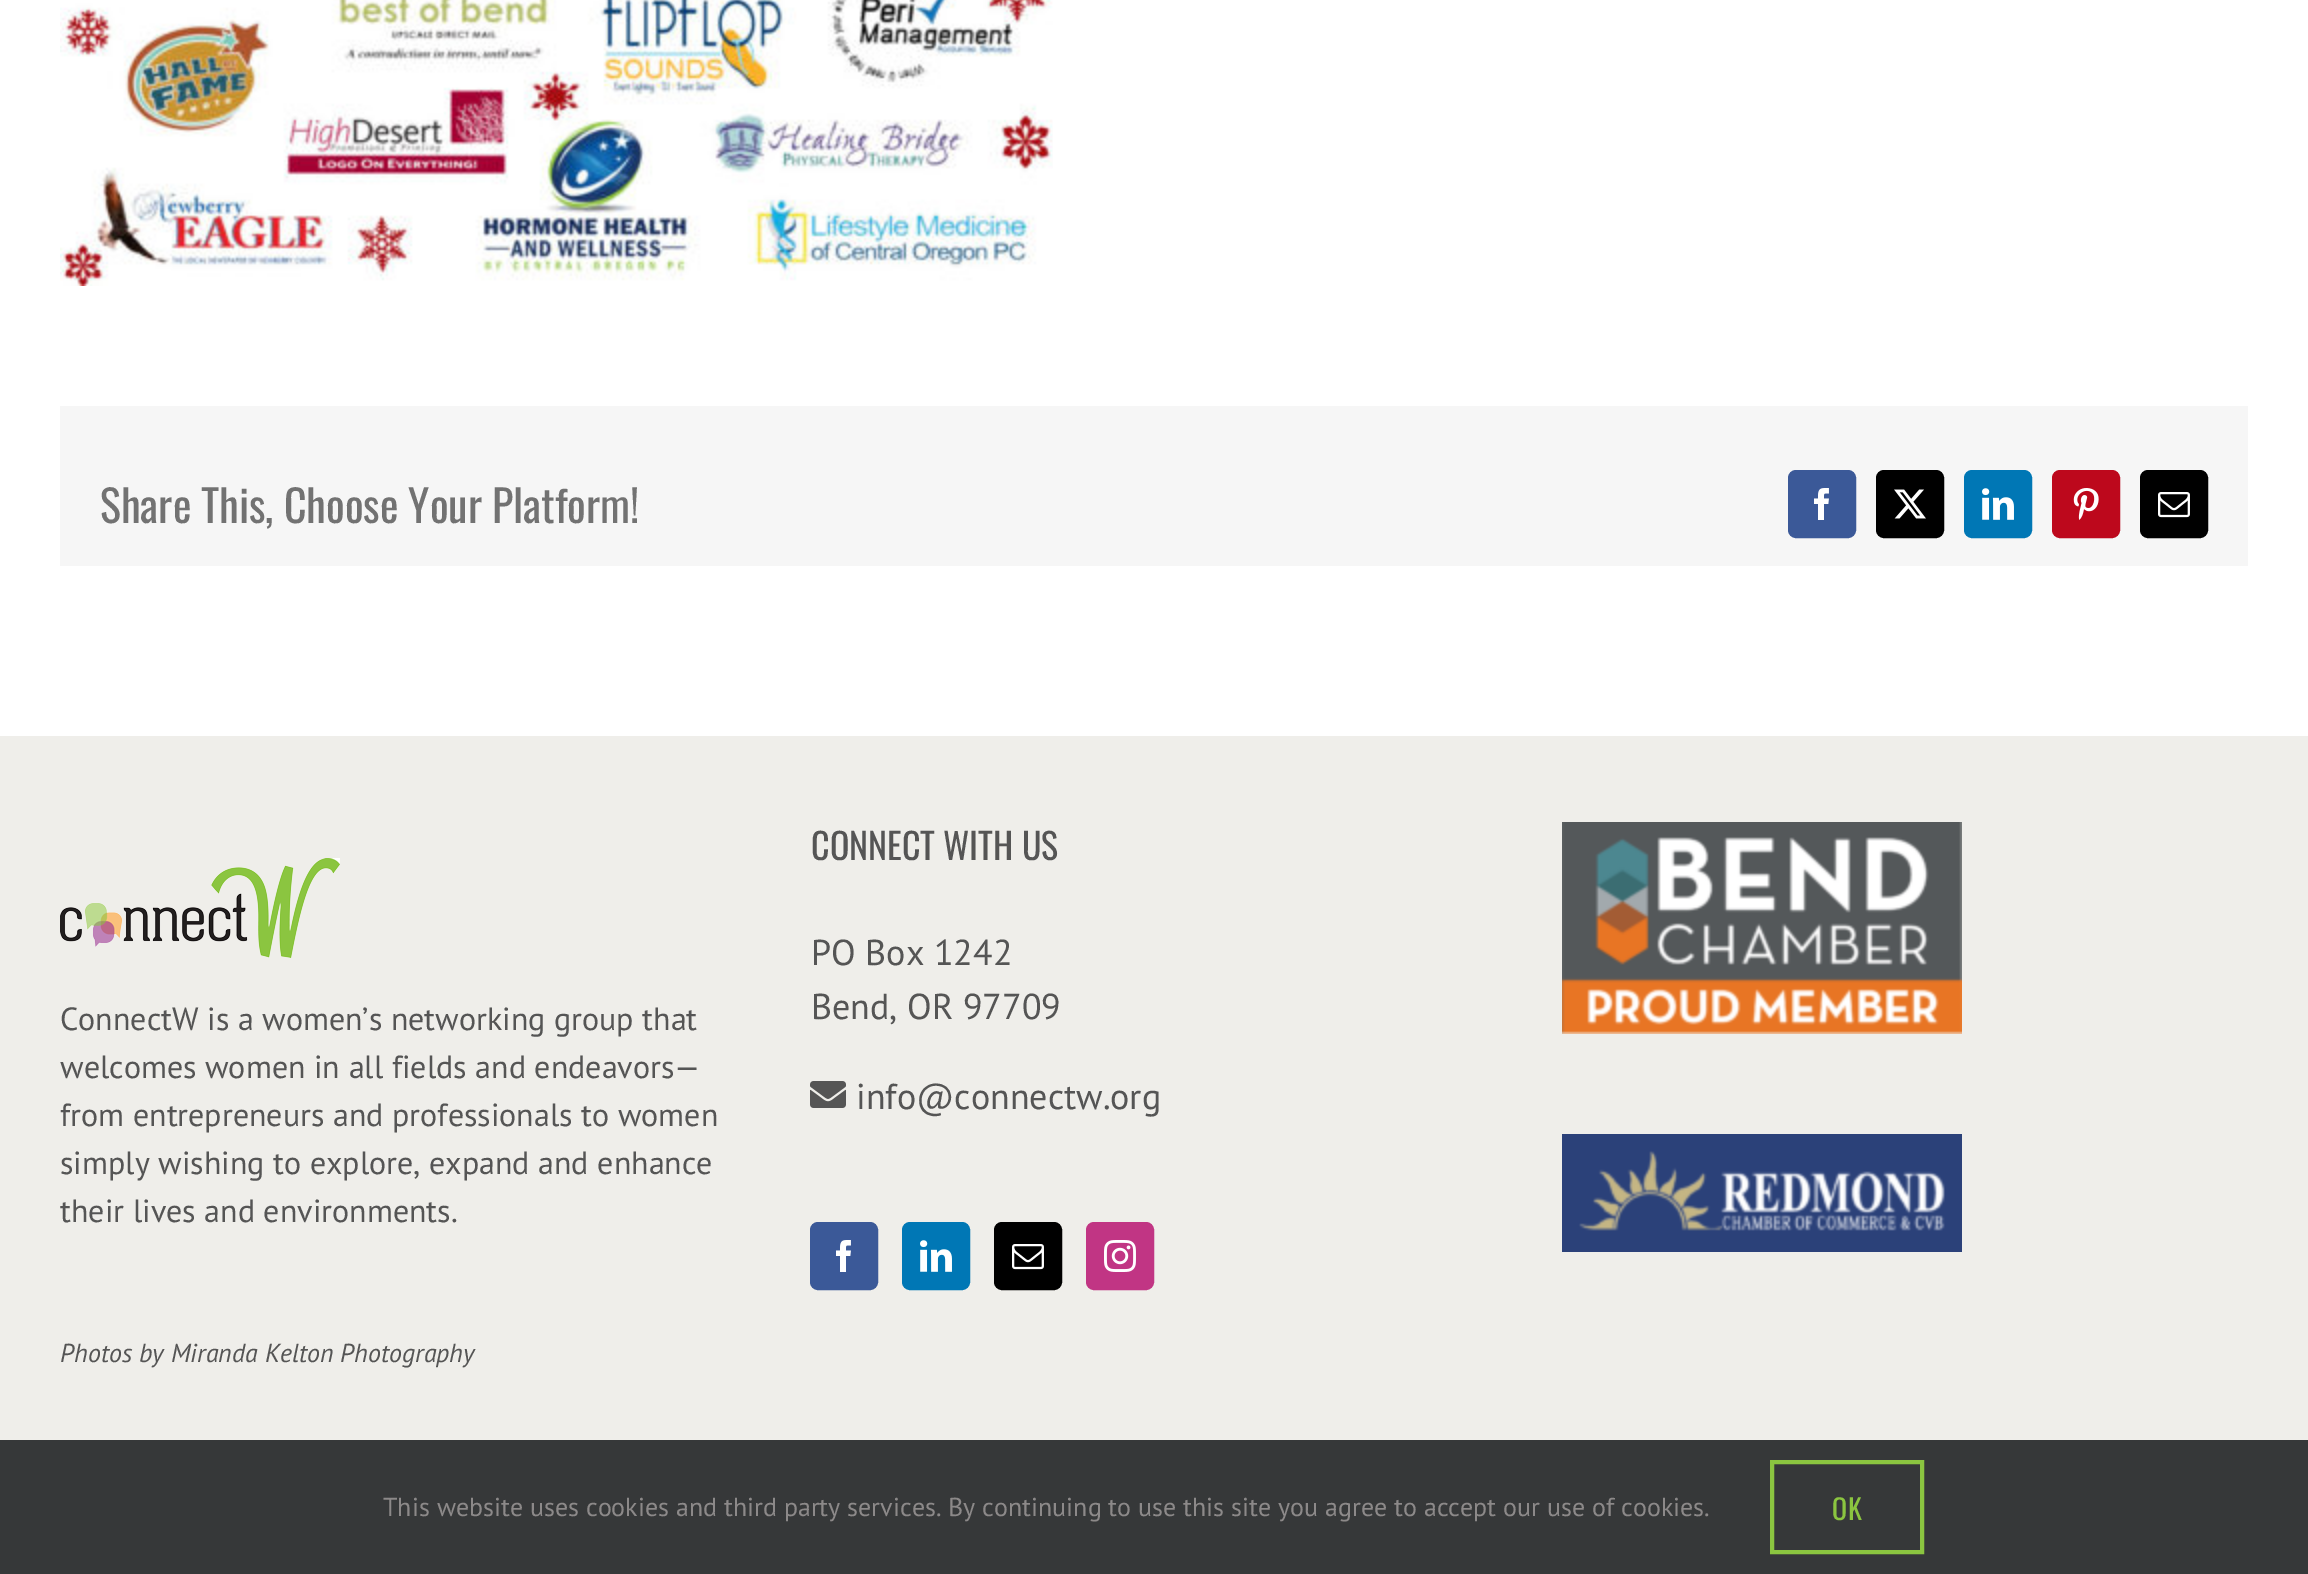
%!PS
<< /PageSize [2308 1574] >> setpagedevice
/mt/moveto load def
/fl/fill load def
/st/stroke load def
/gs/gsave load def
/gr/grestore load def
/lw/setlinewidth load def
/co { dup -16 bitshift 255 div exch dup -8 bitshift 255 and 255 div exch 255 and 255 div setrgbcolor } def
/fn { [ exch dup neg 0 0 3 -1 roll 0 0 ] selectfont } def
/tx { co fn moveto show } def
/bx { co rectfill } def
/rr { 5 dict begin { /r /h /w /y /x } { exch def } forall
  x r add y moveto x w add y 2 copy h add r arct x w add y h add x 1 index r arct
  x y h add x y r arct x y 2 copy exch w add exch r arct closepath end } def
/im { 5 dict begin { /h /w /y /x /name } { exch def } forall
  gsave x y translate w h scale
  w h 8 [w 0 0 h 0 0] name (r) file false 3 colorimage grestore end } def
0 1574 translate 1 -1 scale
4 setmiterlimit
0 0 2308 1574 16#FFFFFF bx
(media/1.raw) 60 0 993 286 im
60 406 2188 160 16#F6F6F6 bx
16#3B5998 co
1789 471 66 66 7 rr gs fl gr
2 lw
st
(media/2.raw) 1814 488 15 32 im
16#000000 co
1877 471 66 66 7 rr gs fl gr
st
(media/3.raw) 1894 489 32 30 im
16#0077B5 co
1965 471 66 66 7 rr gs fl gr
st
(media/4.raw) 1982 488 32 32 im
16#BD081C co
2053 471 66 66 7 rr gs fl gr
st
(media/5.raw) 2073 488 26 32 im
16#000000 co
2141 471 66 66 7 rr gs fl gr
st
(media/6.raw) 2158 492 32 26 im
0 736 2308 704 16#EFEEEA bx
(media/7.raw) 810 1081 36 27 im
16#3B5998 co
811 1223 66 66 7 rr gs fl gr
st
(media/2.raw) 836 1240 15 32 im
16#0077B5 co
903 1223 66 66 7 rr gs fl gr
st
(media/4.raw) 920 1240 32 32 im
16#000000 co
995 1223 66 66 7 rr gs fl gr
st
(media/6.raw) 1012 1244 32 26 im
16#C13584 co
1087 1223 66 66 7 rr gs fl gr
st
(media/8.raw) 1104 1240 32 32 im
(media/9.raw) 1562 822 400 212 im
(media/10.raw) 1562 1134 400 118 im
(media/11.raw) 60 858 280 100 im
0 1440 2308 134 16#363839 bx
16#8BC540 co
4 lw
1772 1462 150 90 rectstroke
(Share This, Choose Your Platform!) 100 523 /Oswald-Regular 44 16#727272 tx
(CONNECT WITH US) 811 860 /Oswald-Regular 36 16#555555 tx
(PO Box 1242) 811 965 /PTSans-Regular 36 16#555555 tx
(Bend, OR 97709) 811 1019 /PTSans-Regular 36 16#555555 tx
(info@connectw.org) 856 1109 /PTSans-Regular 36 16#555555 tx
(ConnectW is a women’s networking group that) 60 1030 /PTSans-Regular 32 16#555555 tx
(welcomes women in all fields and endeavors—) 60 1078 /PTSans-Regular 32 16#555555 tx
(from entrepreneurs and professionals to women) 60 1126 /PTSans-Regular 32 16#555555 tx
(simply wishing to explore, expand and enhance) 60 1174 /PTSans-Regular 32 16#555555 tx
(their lives and environments.) 60 1222 /PTSans-Regular 32 16#555555 tx
(Photos by Miranda Kelton Photography) 60 1362 /PTSans-Italic 26 16#555555 tx
(This website uses cookies and third party services. By continuing to use this site you agree to accept our use of cookies.) 383 1516 /PTSans-Regular 26 16#8C8989 tx
/Oswald-Regular 28 fn
16#8BC540 co
1832 1520 mt 1 0 (OK) ashow
showpage
